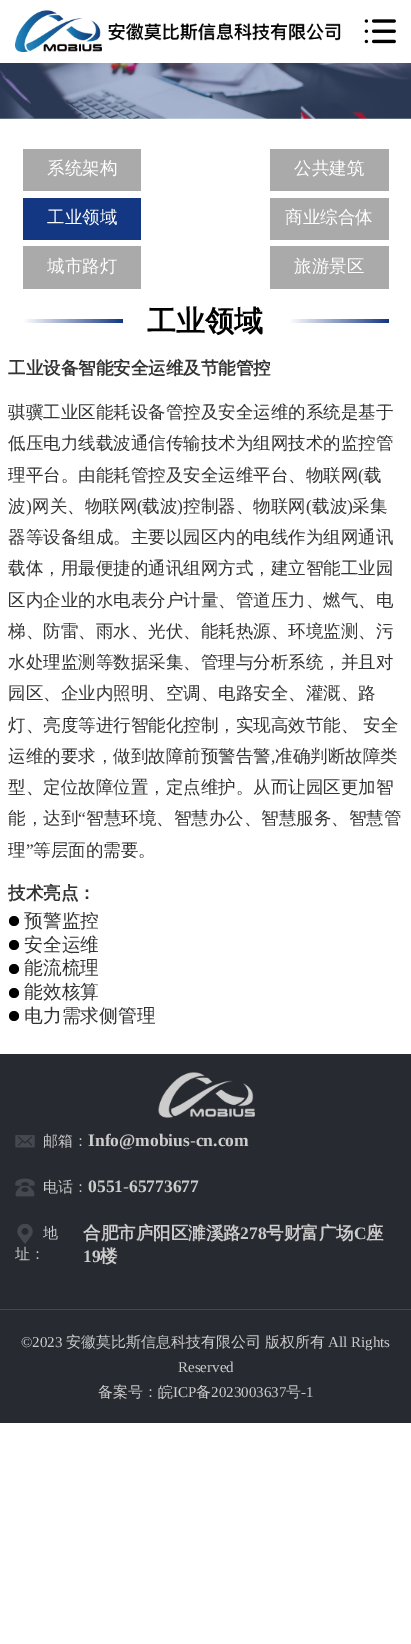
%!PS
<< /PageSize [411 1644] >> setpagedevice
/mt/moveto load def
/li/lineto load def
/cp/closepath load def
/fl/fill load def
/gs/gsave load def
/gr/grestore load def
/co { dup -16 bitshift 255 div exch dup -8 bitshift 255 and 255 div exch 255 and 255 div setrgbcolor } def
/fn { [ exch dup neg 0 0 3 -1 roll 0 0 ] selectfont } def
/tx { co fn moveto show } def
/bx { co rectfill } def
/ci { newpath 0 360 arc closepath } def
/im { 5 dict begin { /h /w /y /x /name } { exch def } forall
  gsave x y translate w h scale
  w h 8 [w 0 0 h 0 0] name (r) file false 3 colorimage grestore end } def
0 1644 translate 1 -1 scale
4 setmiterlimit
0 0 411 1644 16#FFFFFF bx
(media/1.raw) 15 10 326 42 im
(media/2.raw) 364 19 32 25 im
(media/3.raw) 0 63 411 56 im
23 149 118 42 16#AAAAAA bx
270 149 119 42 16#AAAAAA bx
23 198 118 42 16#133783 bx
270 198 119 42 16#AAAAAA bx
23 246 118 43 16#AAAAAA bx
270 246 119 43 16#AAAAAA bx
gs 23 319 mt 123 319 li 123 323 li 23 323 li cp clip newpath
<< /ShadingType 2 /ColorSpace /DeviceRGB /Coords [23 321 123 321] /Extend [true true] /Function << /FunctionType 2 /Domain [0 1] /C0 [1 1 1] /C1 [.075 .216 .514] /N 1 >> >> shfill gr
gs 289 319 mt 389 319 li 389 323 li 289 323 li cp clip newpath
<< /ShadingType 2 /ColorSpace /DeviceRGB /Coords [289 321 389 321] /Extend [true true] /Function << /FunctionType 2 /Domain [0 1] /C0 [1 1 1] /C1 [.075 .216 .514] /N 1 >> >> shfill gr
16#000000 co
14 921 5 ci fl
14 945 5 ci fl
14 969 5 ci fl
14 993 5 ci fl
14 1016 5 ci fl
0 1054 411 255 16#272A30 bx
(media/4.raw) 158 1072 97 46 im
(media/5.raw) 15 1135 20 13 im
(media/6.raw) 15 1178 20 19 im
(media/7.raw) 17 1224 16 20 im
0 1310 411 113 16#272A30 bx
0 1309 411 1 16#45474C bx
(系统架构) 47 174 /WenQuanYiZenHei-Medium 17.5 16#FFFFFF tx
(公共建筑) 294 174 /WenQuanYiZenHei-Medium 17.5 16#FFFFFF tx
(工业领域) 47 223 /WenQuanYiZenHei-Medium 17.5 16#FFFFFF tx
(商业综合体) 285 223 /WenQuanYiZenHei-Medium 17.5 16#FFFFFF tx
(城市路灯) 47 272 /WenQuanYiZenHei-Medium 17.5 16#FFFFFF tx
(旅游景区) 294 272 /WenQuanYiZenHei-Medium 17.5 16#FFFFFF tx
(工业领域) 147 331 /WenQuanYiZenHei-Bold 29 16#000000 tx
(工业设备智能安全运维及节能管控) 8 374 /WenQuanYiZenHei-Bold 17.5 16#333333 tx
(骐骥工业区能耗设备管控及安全运维的系统是基于) 8 418 /WenQuanYiZenHei-Medium 17.5 16#333333 tx
(低压电力线载波通信传输技术为组网技术的监控管) 8 449 /WenQuanYiZenHei-Medium 17.5 16#333333 tx
(理平台。由能耗管控及安全运维平台、物联网) 8 481 /WenQuanYiZenHei-Medium 17.5 16#333333 tx
(\() 358 481 /LiberationSerif-Regular 17.5 16#333333 tx
(载) 364 481 /WenQuanYiZenHei-Medium 17.5 16#333333 tx
(波) 8 512 /WenQuanYiZenHei-Medium 17.5 16#333333 tx
(\)) 26 512 /LiberationSerif-Regular 17.5 16#333333 tx
(网关、物联网) 32 512 /WenQuanYiZenHei-Medium 17.5 16#333333 tx
(\() 137 512 /LiberationSerif-Regular 17.5 16#333333 tx
(载波) 142 512 /WenQuanYiZenHei-Medium 17.5 16#333333 tx
(\)) 177 512 /LiberationSerif-Regular 17.5 16#333333 tx
(控制器、物联网) 183 512 /WenQuanYiZenHei-Medium 17.5 16#333333 tx
(\() 306 512 /LiberationSerif-Regular 17.5 16#333333 tx
(载波) 312 512 /WenQuanYiZenHei-Medium 17.5 16#333333 tx
(\)) 347 512 /LiberationSerif-Regular 17.5 16#333333 tx
(采集) 352 512 /WenQuanYiZenHei-Medium 17.5 16#333333 tx
(器等设备组成。主要以园区内的电线作为组网通讯) 8 543 /WenQuanYiZenHei-Medium 17.5 16#333333 tx
(载体，用最便捷的通讯组网方式，建立智能工业园) 8 574 /WenQuanYiZenHei-Medium 17.5 16#333333 tx
(区内企业的水电表分户计量、管道压力、燃气、电) 8 606 /WenQuanYiZenHei-Medium 17.5 16#333333 tx
(梯、防雷、雨水、光伏、能耗热源、环境监测、污) 8 637 /WenQuanYiZenHei-Medium 17.5 16#333333 tx
(水处理监测等数据采集、管理与分析系统，并且对) 8 668 /WenQuanYiZenHei-Medium 17.5 16#333333 tx
(园区、企业内照明、空调、电路安全、灌溉、路) 8 699 /WenQuanYiZenHei-Medium 17.5 16#333333 tx
(灯、亮度等进行智能化控制，实现高效节能、) 8 731 /WenQuanYiZenHei-Medium 17.5 16#333333 tx
(安全) 363 731 /WenQuanYiZenHei-Medium 17.5 16#333333 tx
(运维的要求，做到故障前预警告警) 8 762 /WenQuanYiZenHei-Medium 17.5 16#333333 tx
(,) 271 762 /LiberationSerif-Regular 17.5 16#333333 tx
(准确判断故障类) 275 762 /WenQuanYiZenHei-Medium 17.5 16#333333 tx
(型、定位故障位置，定点维护。从而让园区更加智) 8 793 /WenQuanYiZenHei-Medium 17.5 16#333333 tx
(能，达到) 8 824 /WenQuanYiZenHei-Medium 17.5 16#333333 tx
(“) 78 824 /LiberationSerif-Regular 17.5 16#333333 tx
(智慧环境、智慧办公、智慧服务、智慧管) 86 824 /WenQuanYiZenHei-Medium 17.5 16#333333 tx
(理) 8 856 /WenQuanYiZenHei-Medium 17.5 16#333333 tx
(”) 26 856 /LiberationSerif-Regular 17.5 16#333333 tx
(等层面的需要。) 33 856 /WenQuanYiZenHei-Medium 17.5 16#333333 tx
(技术亮点：) 8 899 /WenQuanYiZenHei-Bold 17.5 16#333333 tx
(预警监控) 24 927 /WenQuanYiZenHei-Medium 18.75 16#333333 tx
(安全运维) 24 951 /WenQuanYiZenHei-Medium 18.75 16#333333 tx
(能流梳理) 24 974 /WenQuanYiZenHei-Medium 18.75 16#333333 tx
(能效核算) 24 998 /WenQuanYiZenHei-Medium 18.75 16#333333 tx
(电力需求侧管理) 24 1022 /WenQuanYiZenHei-Medium 18.75 16#333333 tx
(邮箱：) 43 1146 /WenQuanYiZenHei-Medium 15 16#CCCCCC tx
(Info@mobius-cn.com) 88 1146 /LiberationSerif-Bold 17.5 16#CCCCCC tx
(电话：) 43 1192 /WenQuanYiZenHei-Medium 15 16#CCCCCC tx
(0551-65773677) 88 1192 /LiberationSerif-Bold 17.5 16#CCCCCC tx
(地) 43 1238 /WenQuanYiZenHei-Medium 15 16#CCCCCC tx
(址：) 15 1259 /WenQuanYiZenHei-Medium 15 16#CCCCCC tx
(合肥市庐阳区濉溪路) 83 1239 /WenQuanYiZenHei-Bold 17.5 16#CCCCCC tx
(278) 240 1239 /LiberationSerif-Bold 17.5 16#CCCCCC tx
(号财富广场) 266 1239 /WenQuanYiZenHei-Bold 17.5 16#CCCCCC tx
(C) 354 1239 /LiberationSerif-Bold 17.5 16#CCCCCC tx
(座) 366 1239 /WenQuanYiZenHei-Bold 17.5 16#CCCCCC tx
(19) 83 1262 /LiberationSerif-Bold 17.5 16#CCCCCC tx
(楼) 100 1262 /WenQuanYiZenHei-Bold 17.5 16#CCCCCC tx
(©2023) 21 1347 /LiberationSerif-Regular 15 16#CCCCCC tx
(安徽莫比斯信息科技有限公司) 66 1347 /WenQuanYiZenHei-Medium 15 16#CCCCCC tx
(版权所有) 265 1347 /WenQuanYiZenHei-Medium 15 16#CCCCCC tx
(All Rights) 328 1347 /LiberationSerif-Regular 15 16#CCCCCC tx
(Reserved) 178 1372 /LiberationSerif-Regular 15 16#CCCCCC tx
(备案号：皖) 98 1397 /WenQuanYiZenHei-Medium 15 16#CCCCCC tx
(ICP) 173 1397 /LiberationSerif-Regular 15 16#CCCCCC tx
(备) 196 1397 /WenQuanYiZenHei-Medium 15 16#CCCCCC tx
(2023003637) 211 1397 /LiberationSerif-Regular 15 16#CCCCCC tx
(号) 286 1397 /WenQuanYiZenHei-Medium 15 16#CCCCCC tx
(-1) 301 1397 /LiberationSerif-Regular 15 16#CCCCCC tx
showpage
